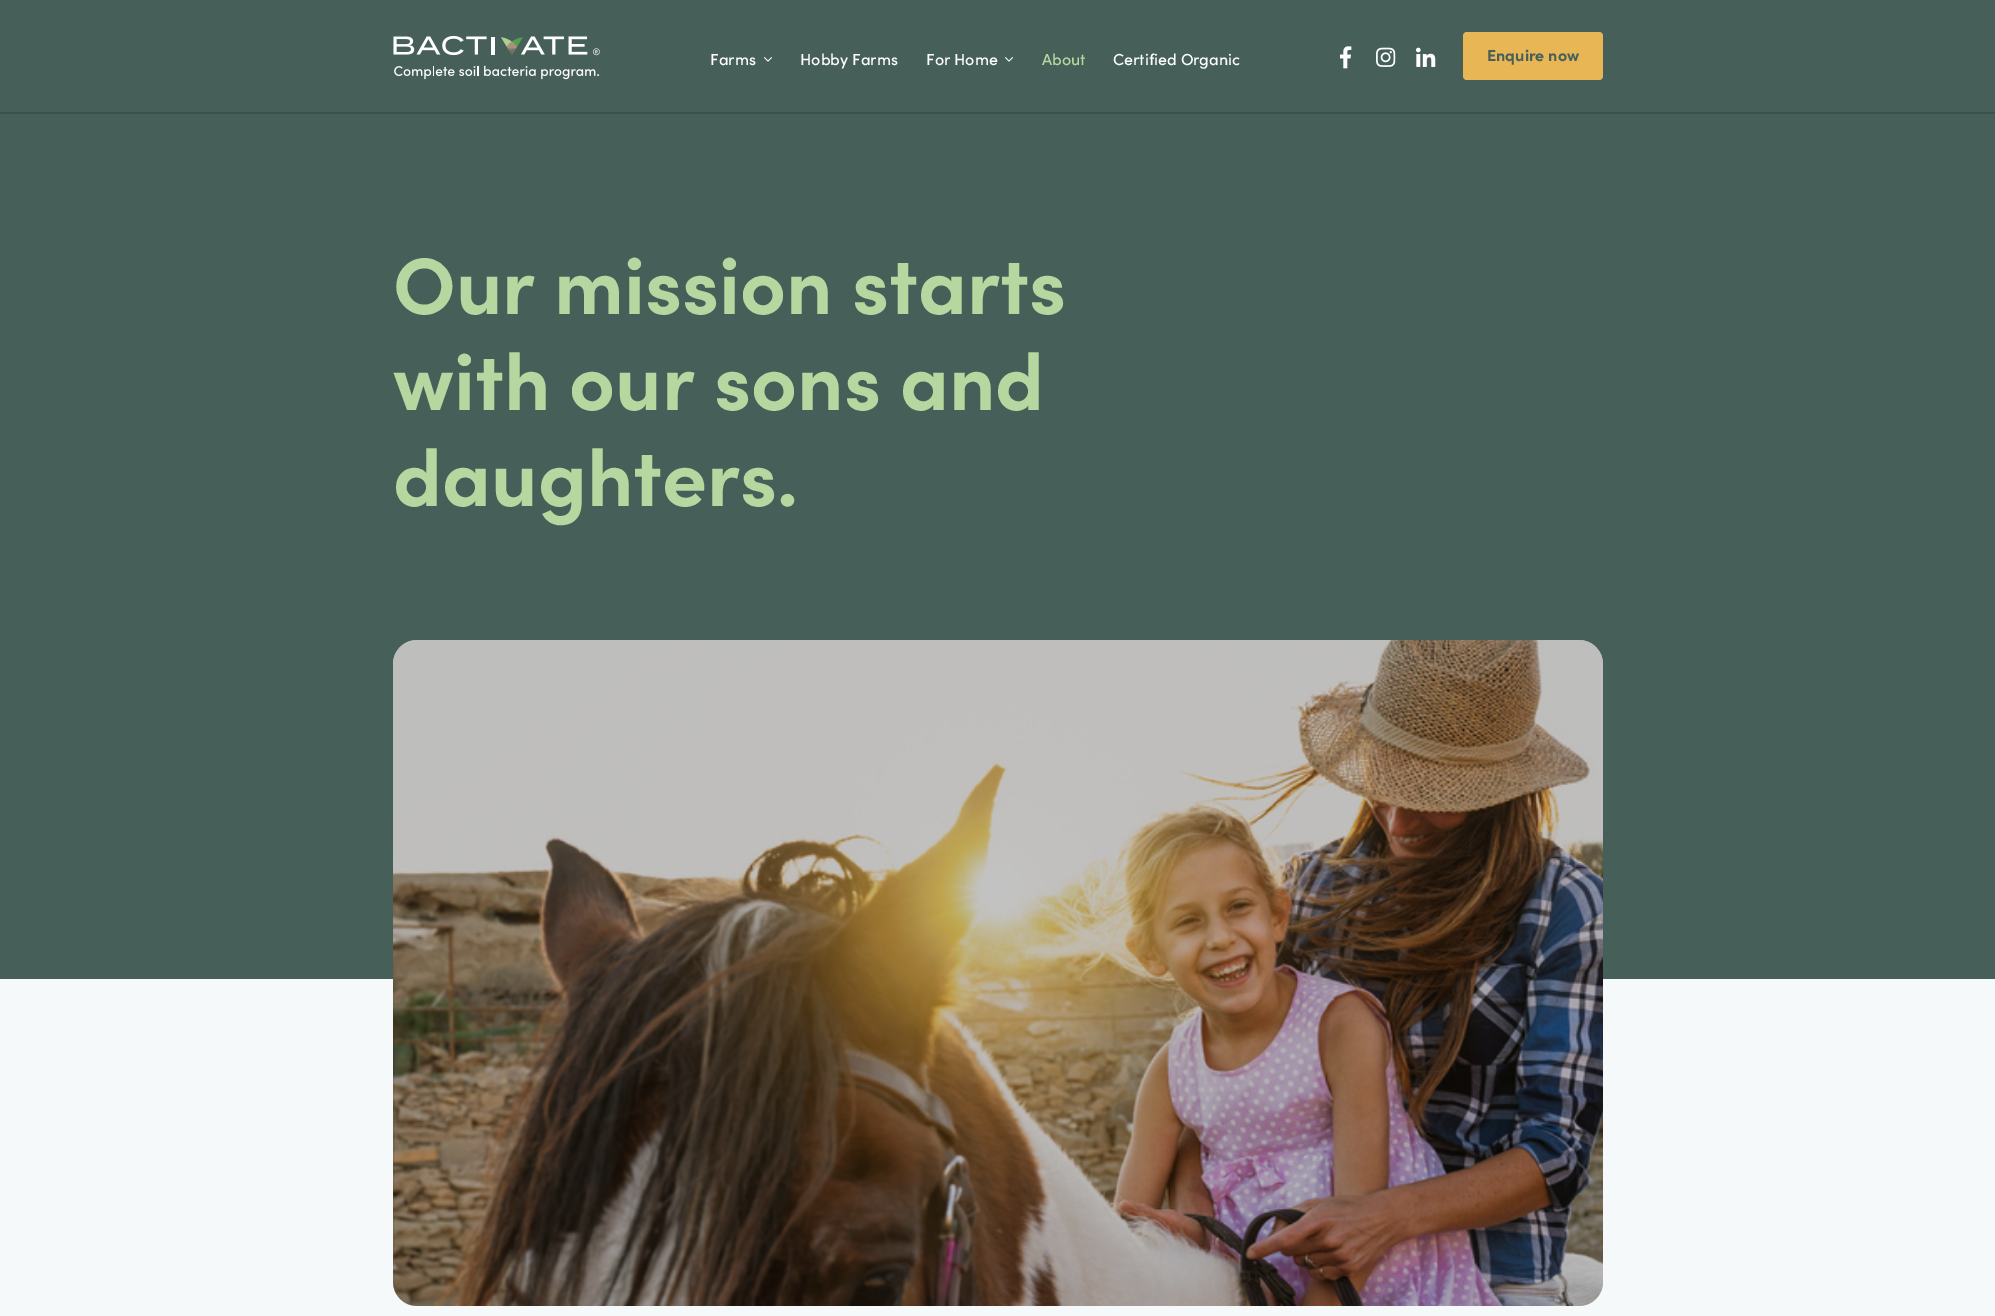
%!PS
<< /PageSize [1995 1316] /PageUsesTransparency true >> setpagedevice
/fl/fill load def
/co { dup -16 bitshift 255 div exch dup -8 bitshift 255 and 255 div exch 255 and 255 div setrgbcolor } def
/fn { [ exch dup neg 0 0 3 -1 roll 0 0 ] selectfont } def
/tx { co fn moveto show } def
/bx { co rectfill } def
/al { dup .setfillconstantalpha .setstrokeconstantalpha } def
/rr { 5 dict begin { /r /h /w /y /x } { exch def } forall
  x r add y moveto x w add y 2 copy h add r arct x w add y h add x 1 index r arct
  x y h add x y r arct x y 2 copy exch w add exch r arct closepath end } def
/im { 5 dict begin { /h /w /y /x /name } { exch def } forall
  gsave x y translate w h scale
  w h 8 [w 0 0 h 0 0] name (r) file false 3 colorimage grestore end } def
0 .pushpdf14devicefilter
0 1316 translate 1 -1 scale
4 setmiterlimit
0 0 1995 1316 16#F6F9F9 bx
0 0 1995 979 16#465F59 bx
0 112 1995 2 16#3C514C bx
(media/1.raw) 393 36 207 44 im
(media/2.raw) 764 57 8 5 im
(media/2.raw) 1005 57 8 5 im
(media/3.raw) 1340 46 12 23 im
(media/4.raw) 1376 47 20 20 im
(media/5.raw) 1416 47 20 20 im
16#E9B655 co
1463 32 140 48 4 rr fl
(media/6.raw) 393 640 1210 666 im
0.2 al
16#000000 co
393 640 1210 666 24 rr fl
1 al
(Farms) 710 65 /Sofia-Medium 16 16#FFFFFF tx
(Hobby Farms) 800 65 /Sofia-Medium 16 16#FFFFFF tx
(For Home) 926 65 /Sofia-Medium 16 16#FFFFFF tx
(About) 1042 65 /Sofia-Medium 16 16#B6D79F tx
(Certified Organic) 1113 65 /Sofia-Medium 16 16#FFFFFF tx
(Enquire now) 1487 61 /Sofia-Bold 16 16#465F59 tx
(Our mission starts) 393 314 /Sofia-Bold 80 16#B6D79F tx
(with our sons and) 393 410 /Sofia-Bold 80 16#B6D79F tx
(daughters.) 393 506 /Sofia-Bold 80 16#B6D79F tx
.poppdf14devicefilter showpage
